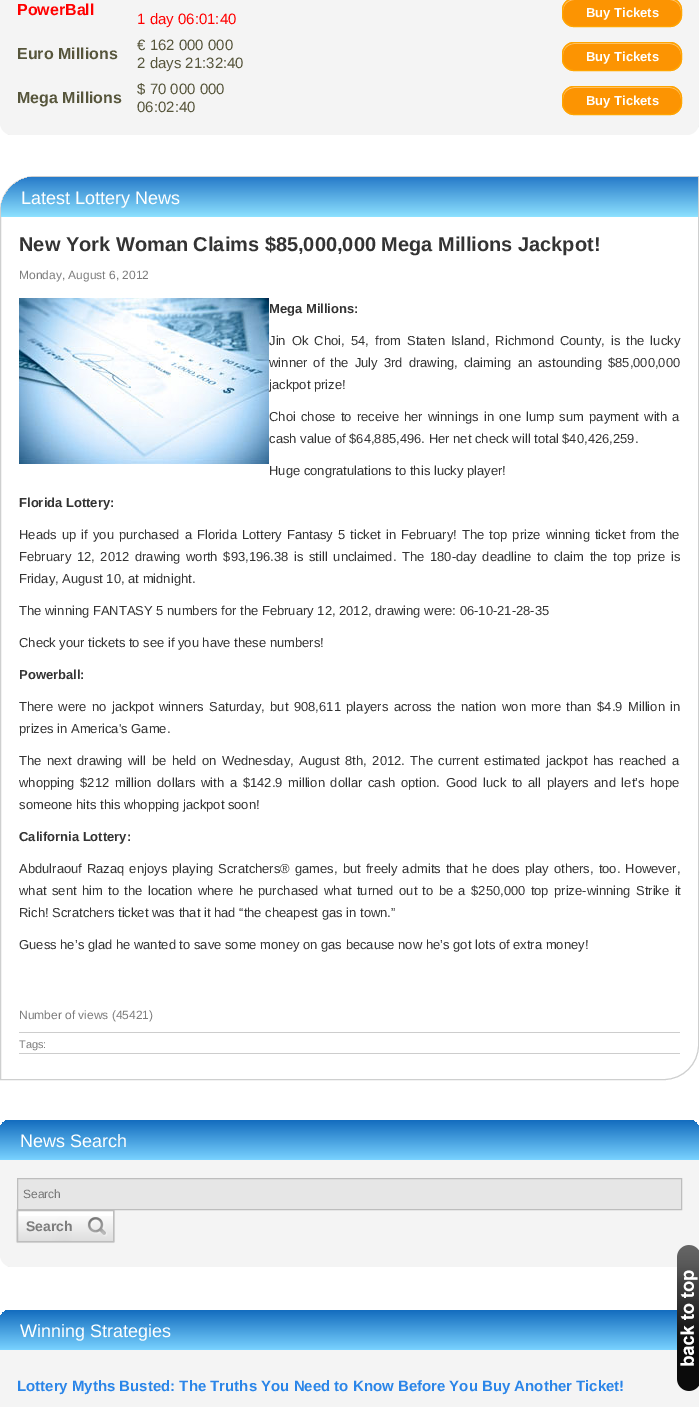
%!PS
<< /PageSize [699 1407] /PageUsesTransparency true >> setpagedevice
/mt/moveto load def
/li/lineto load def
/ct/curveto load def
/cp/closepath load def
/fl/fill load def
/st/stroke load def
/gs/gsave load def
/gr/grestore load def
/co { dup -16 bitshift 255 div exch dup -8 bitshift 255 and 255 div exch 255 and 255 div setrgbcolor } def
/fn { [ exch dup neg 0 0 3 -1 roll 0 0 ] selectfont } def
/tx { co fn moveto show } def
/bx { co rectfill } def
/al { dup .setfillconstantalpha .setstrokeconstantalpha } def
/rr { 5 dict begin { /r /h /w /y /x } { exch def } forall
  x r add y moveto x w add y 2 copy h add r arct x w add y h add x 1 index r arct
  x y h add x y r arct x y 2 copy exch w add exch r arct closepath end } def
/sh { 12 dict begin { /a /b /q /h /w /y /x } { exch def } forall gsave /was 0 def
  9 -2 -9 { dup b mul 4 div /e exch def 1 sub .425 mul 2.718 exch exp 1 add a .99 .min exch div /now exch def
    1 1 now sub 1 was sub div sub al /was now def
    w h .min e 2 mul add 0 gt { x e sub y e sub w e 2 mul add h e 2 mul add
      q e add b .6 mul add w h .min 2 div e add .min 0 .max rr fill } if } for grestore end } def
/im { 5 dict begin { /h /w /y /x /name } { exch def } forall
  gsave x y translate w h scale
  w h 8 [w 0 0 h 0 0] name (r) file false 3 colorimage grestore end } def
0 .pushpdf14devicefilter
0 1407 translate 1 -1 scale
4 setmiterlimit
0 0 699 1407 16#FFFFFF bx
16#E5E6E6 co
35 -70 mt 689 -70 li 695 -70 699 -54 699 -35 ct 699 125 li 699 131 683 135 664 135 ct 10 135 li 4 135 0 119 0 100 ct 0 -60 li 0 -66 16 -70 35 -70 ct cp fl
16#F4F4F4 co
0 -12 mt 699 -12 li 699 123 li 699 129.5 693.5 135 687 135 ct 12 135 li 5.5 135 0 129.5 0 123 ct cp fl
16#FC9402 co
562 -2 120 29 12 rr fl
16#FECA81 co
574 0 mt 670 0 li 676 0 681 5 681 11 ct 681 -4 664 -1 654 -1 ct 590 -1 li 580 -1 563 -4 563 11 ct 563 5 568 0 574 0 ct cp fl
16#FFA500 co
562.5 -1.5 119 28 11.5 rr st
16#FC9402 co
562 42 120 29 12 rr fl
16#FECA81 co
574 44 mt 670 44 li 676 44 681 49 681 55 ct 681 40 664 43 654 43 ct 590 43 li 580 43 563 40 563 55 ct 563 49 568 44 574 44 ct cp fl
16#FFA500 co
562.5 42.5 119 28 11.5 rr st
16#FC9402 co
562 86 120 29 12 rr fl
16#FECA81 co
574 88 mt 670 88 li 676 88 681 93 681 99 ct 681 84 664 87 654 87 ct 590 87 li 580 87 563 84 563 99 ct 563 93 568 88 574 88 ct cp fl
16#FFA500 co
562.5 86.5 119 28 11.5 rr st
16#CECFCF co
35 176.5 mt 698.5 176.5 li 698.5 1045 li 698.5 1064 683 1079.5 664 1079.5 ct .5 1079.5 li .5 211 li .5 192 16 176.5 35 176.5 ct cp st
gs 36 177 mt 698 177 li 698 217 li 1 217 li 1 212 li 1 192.5 16.5 177 36 177 ct cp clip newpath
<< /ShadingType 2 /ColorSpace /DeviceRGB /Coords [350 177 350 217] /Extend [true true] /Function << /FunctionType 2 /Domain [0 1] /C0 [.153 .482 .788] /C1 [.553 .882 1] /N 1 >> >> shfill gr
(media/1.raw) 19 298 250 166 im
19 1032 661 1 16#CDCDCD bx
19 1053 661 1 16#CDCDCD bx
16#E5E6E6 co
35 1120 mt 689 1120 li 695 1120 699 1136 699 1155 ct 699 1257 li 699 1263 683 1267 664 1267 ct 10 1267 li 4 1267 0 1251 0 1232 ct 0 1130 li 0 1124 16 1120 35 1120 ct cp fl
gs 10 1120 mt 689 1120 li 694.5 1120 699 1124.5 699 1130 ct 699 1160 li 0 1160 li 0 1130 li 0 1124.5 4.5 1120 10 1120 ct cp clip newpath
<< /ShadingType 2 /ColorSpace /DeviceRGB /Coords [350 1120 350 1160] /Extend [true true] /Function << /FunctionType 2 /Domain [0 1] /C0 [.075 .424 .745] /C1 [.475 .824 1] /N 1 >> >> shfill gr
16#F4F4F4 co
0 1160 mt 699 1160 li 699 1255 li 699 1261.5 693.5 1267 687 1267 ct 12 1267 li 5.5 1267 0 1261.5 0 1255 ct cp fl
16#888888 co
17 1210 97 32 0 .5 1 sh
16#E6E6E6 co
17.5 1178.5 mt 681.5 1178.5 li 681.5 1209.5 li 17.5 1209.5 li cp gs fl gr
16#BDBDBD co
st
18 1211 95 30 16#FFFFFF bx
(media/2.raw) 18 1216 95 25 im
16#BDBDBD co
17.5 1210.5 96 31 rectstroke
gs 10 1310 mt 689 1310 li 694.5 1310 699 1314.5 699 1320 ct 699 1350 li 0 1350 li 0 1320 li 0 1314.5 4.5 1310 10 1310 ct cp clip newpath
<< /ShadingType 2 /ColorSpace /DeviceRGB /Coords [350 1310 350 1350] /Extend [true true] /Function << /FunctionType 2 /Domain [0 1] /C0 [.075 .424 .745] /C1 [.475 .824 1] /N 1 >> >> shfill gr
0 1350 699 57 16#F4F4F4 bx
(media/3.raw) 677 1245 22 146 im
(PowerBall) 17 15 /LiberationSans-Bold 16 16#FF0000 tx
(1 day 06:01:40) 137 24 /LiberationSans-Regular 15 16#FF0000 tx
(Buy Tickets) 586 17 /LiberationSans-Bold 13 16#FFFFFF tx
(Euro Millions) 17 59 /LiberationSans-Bold 16 16#56553B tx
(€ 162 000 000) 137 50 /LiberationSans-Regular 15 16#56553B tx
(2 days 21:32:40) 137 68 /LiberationSans-Regular 15 16#56553B tx
(Buy Tickets) 586 61 /LiberationSans-Bold 13 16#FFFFFF tx
(Mega Millions) 17 103 /LiberationSans-Bold 16 16#56553B tx
($ 70 000 000) 137 94 /LiberationSans-Regular 15 16#56553B tx
(06:02:40) 137 112 /LiberationSans-Regular 15 16#56553B tx
(Buy Tickets) 586 105 /LiberationSans-Bold 13 16#FFFFFF tx
(Latest Lottery News) 21 204 /LiberationSans-Regular 18 16#FFFFFF tx
(New York Woman Claims $85,000,000 Mega Millions Jackpot!) 19 251 /LiberationSans-Bold 20 16#333333 tx
(Monday, August 6, 2012) 19 279 /LiberationSans-Regular 12 16#7C7C7C tx
(Mega Millions:) 269 313 /LiberationSans-Bold 13 16#333333 tx
/LiberationSans-Regular 13 fn
269 345 mt 2.5 0 32 (Jin Ok Choi, 54, from Staten Island, Richmond County, is the lucky) widthshow
269 367 mt 2.5 0 32 (winner of the July 3rd drawing, claiming an astounding $85,000,000) widthshow
(jackpot prize!) 269 389 /LiberationSans-Regular 13 16#333333 tx
269 421 mt 1.6 0 32 (Choi chose to receive her winnings in one lump sum payment with a) widthshow
(cash value of $64,885,496. Her net check will total $40,426,259.) 269 443 /LiberationSans-Regular 13 16#333333 tx
(Huge congratulations to this lucky player!) 269 475 /LiberationSans-Regular 13 16#333333 tx
(Florida Lottery:) 19 507 /LiberationSans-Bold 13 16#333333 tx
/LiberationSans-Regular 13 fn
19 539 mt 1.5 0 32 (Heads up if you purchased a Florida Lottery Fantasy 5 ticket in February! The top prize winning ticket from the) widthshow
19 561 mt 2 0 32 (February 12, 2012 drawing worth $93,196.38) widthshow
294 561 mt 2 0 32 (is still unclaimed. The 180-day deadline to claim the top prize is) widthshow
(Friday, August 10, at midnight.) 19 583 /LiberationSans-Regular 13 16#333333 tx
(The winning FANTASY 5 numbers for the February 12, 2012, drawing were: 06-10-21-28-35) 19 615 /LiberationSans-Regular 13 16#333333 tx
(Check your tickets to see if you have these numbers!) 19 647 /LiberationSans-Regular 13 16#333333 tx
(Powerball:) 19 679 /LiberationSans-Bold 13 16#333333 tx
/LiberationSans-Regular 13 fn
19 711 mt 1.9 0 32 (There were no jackpot winners Saturday, but 908,611 players across the nation won more than $4.9 Million in) widthshow
(prizes in America's Game.) 19 733 /LiberationSans-Regular 13 16#333333 tx
19 765 mt 1.9 0 32 (The next drawing will be held on Wednesday, August 8th, 2012. The current estimated jackpot has reached a) widthshow
19 787 mt 2 0 32 (whopping $212 million dollars with a $142.9) widthshow
288 787 mt 2 0 32 (million dollar cash option. Good luck to all players and let’s hope) widthshow
(someone hits this whopping jackpot soon!) 19 809 /LiberationSans-Regular 13 16#333333 tx
(California Lottery:) 19 841 /LiberationSans-Bold 13 16#333333 tx
/LiberationSans-Regular 13 fn
19 873 mt 1.4 0 32 (Abdulraouf Razaq enjoys playing Scratchers® games, but freely admits that he does play others, too. However,) widthshow
19 895 mt 1.75 0 32 (what sent him to the location where he) widthshow
258 895 mt 1.75 0 32 (purchased what turned out to be a $250,000 top prize-winning Strike it) widthshow
(Rich! Scratchers ticket was that it had “the cheapest gas in town.”) 19 917 /LiberationSans-Regular 13 16#333333 tx
(Guess he’s glad he wanted to save some money on gas because now he’s got lots of extra money!) 19 949 /LiberationSans-Regular 13 16#333333 tx
(Number of views \(45421\)) 19 1019 /LiberationSans-Regular 12 16#7C7C7C tx
(Tags:) 19 1048 /LiberationSans-Regular 11 16#7C7C7C tx
(News Search) 20 1147 /LiberationSans-Regular 18 16#FFFFFF tx
(Search) 23 1198 /LiberationSans-Regular 12 16#757575 tx
(Search) 26 1231 /LiberationSans-Bold 14 16#7C7C7C tx
(Winning Strategies) 20 1337 /LiberationSans-Regular 18 16#FFFFFF tx
(Lottery Myths Busted: The Truths You Need to Know Before You Buy Another Ticket!) 17 1391 /LiberationSans-Bold 15 16#2A85E8 tx
.poppdf14devicefilter showpage
